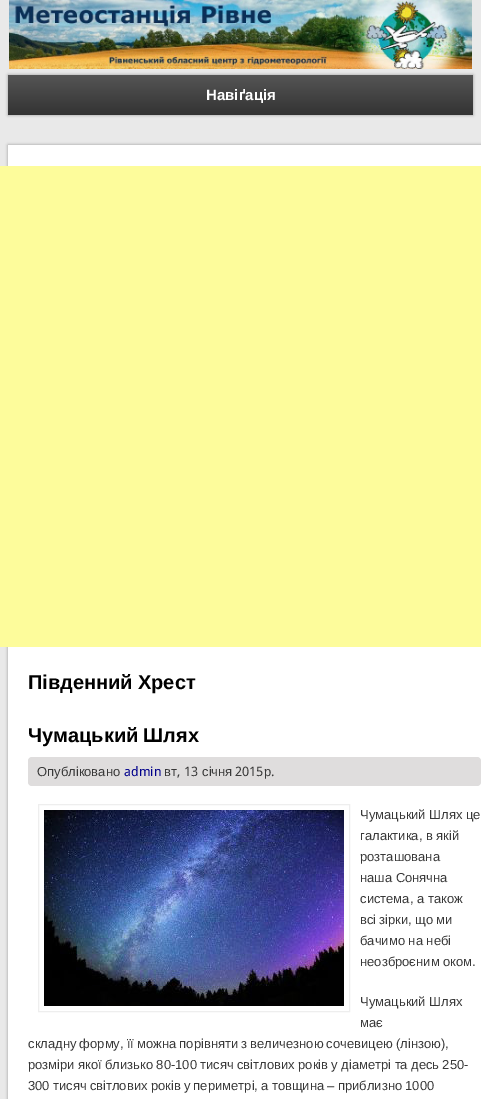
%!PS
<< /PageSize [481 1099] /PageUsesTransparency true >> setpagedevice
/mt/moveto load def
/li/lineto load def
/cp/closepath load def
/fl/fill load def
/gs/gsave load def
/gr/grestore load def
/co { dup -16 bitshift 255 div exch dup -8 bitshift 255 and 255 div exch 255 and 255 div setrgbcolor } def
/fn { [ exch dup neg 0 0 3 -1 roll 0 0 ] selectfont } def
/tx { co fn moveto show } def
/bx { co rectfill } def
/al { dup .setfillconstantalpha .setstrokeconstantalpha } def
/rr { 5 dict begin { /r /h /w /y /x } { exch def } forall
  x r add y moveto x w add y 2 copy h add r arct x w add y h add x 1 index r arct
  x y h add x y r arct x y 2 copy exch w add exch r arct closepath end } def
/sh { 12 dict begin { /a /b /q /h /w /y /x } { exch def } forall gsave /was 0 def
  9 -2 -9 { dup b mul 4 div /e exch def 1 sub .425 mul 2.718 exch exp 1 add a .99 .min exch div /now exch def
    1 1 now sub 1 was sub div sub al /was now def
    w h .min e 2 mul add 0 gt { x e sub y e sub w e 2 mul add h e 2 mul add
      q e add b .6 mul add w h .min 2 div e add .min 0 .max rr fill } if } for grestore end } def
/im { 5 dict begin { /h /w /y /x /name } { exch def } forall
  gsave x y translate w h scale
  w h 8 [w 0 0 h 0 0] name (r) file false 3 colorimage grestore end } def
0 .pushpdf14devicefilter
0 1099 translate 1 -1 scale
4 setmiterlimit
0 0 481 1099 16#E9E9E9 bx
(media/1.raw) 9 0 463 69 im
16#999999 co
8 75 465 40 0 1.5 1 sh
gs 8 75 mt 473 75 li 473 115 li 8 115 li cp clip newpath
<< /ShadingType 2 /ColorSpace /DeviceRGB /Coords [241 75 241 155] /Extend [true true] /Function << /FunctionType 3 /Domain [0 1] /Functions [<< /FunctionType 2 /Domain [0 1] /C0 [.333 .333 .333] /C1 [.2 .2 .2] /N 1 >> << /FunctionType 2 /Domain [0 1] /C0 [.333 .333 .333] /C1 [.2 .2 .2] /N 1 >>] /Bounds [.5] /Encode [0 1 0 1] >> >> shfill gr
8 145 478 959 0 1.5 1 sh
8 145 473 954 16#FFFFFF bx
0 166 481 481 16#FDFC9B bx
16#DFDDDD co
28 757 453 29 4 rr fl
16#EEEEEE co
38.5 804.5 311 207 rectstroke
(media/2.raw) 44 810 300 196 im
(Навіґація) 206 100 /LiberationSans-Bold 15 16#FFFFFF tx
/LiberationSans-Bold 20 fn
16#000000 co
28 689 mt -.5 0 32 (Південний Хрест) widthshow
28 742 mt -.5 0 32 (Чумацький Шлях) widthshow
(Опубліковано) 37 776 /LiberationSans-Regular 13 16#383838 tx
(admin) 124 776 /DroidSans-Regular 13 16#00008B tx
(вт) 164 776 /LiberationSans-Regular 13 16#383838 tx
(, 13) 177 776 /DroidSans-Regular 13 16#383838 tx
(січня) 202 776 /LiberationSans-Regular 13 16#383838 tx
(2015) 235 776 /DroidSans-Regular 13 16#383838 tx
(р) 264 776 /LiberationSans-Regular 13 16#383838 tx
(.) 271 776 /DroidSans-Regular 13 16#383838 tx
(Чумацький Шлях це) 360 819 /LiberationSans-Regular 13 16#383838 tx
(галактика, в якій) 360 840 /LiberationSans-Regular 13 16#383838 tx
(розташована) 360 861 /LiberationSans-Regular 13 16#383838 tx
(наша Сонячна) 360 882 /LiberationSans-Regular 13 16#383838 tx
(система, а також) 360 903 /LiberationSans-Regular 13 16#383838 tx
360 924 mt -.5 0 32 (всі зірки, що ми) widthshow
(бачимо на небі) 360 945 /LiberationSans-Regular 13 16#383838 tx
360 966 mt -.5 0 32 (неозброєним оком.) widthshow
(Чумацький Шлях) 360 1006 /LiberationSans-Regular 13 16#383838 tx
(має) 360 1027 /LiberationSans-Regular 13 16#383838 tx
28 1048 mt -.5 0 32 (складну форму, її можна порівняти з величезною сочевицею \(лінзою\),) widthshow
28 1069 mt -.25 0 32 (розміри якої близько 80-100 тисяч світлових років у діаметрі та десь 250-) widthshow
28 1090 mt -.4 0 32 (300 тисяч світлових років у периметрі, а товщина – приблизно 1000) widthshow
.poppdf14devicefilter showpage
